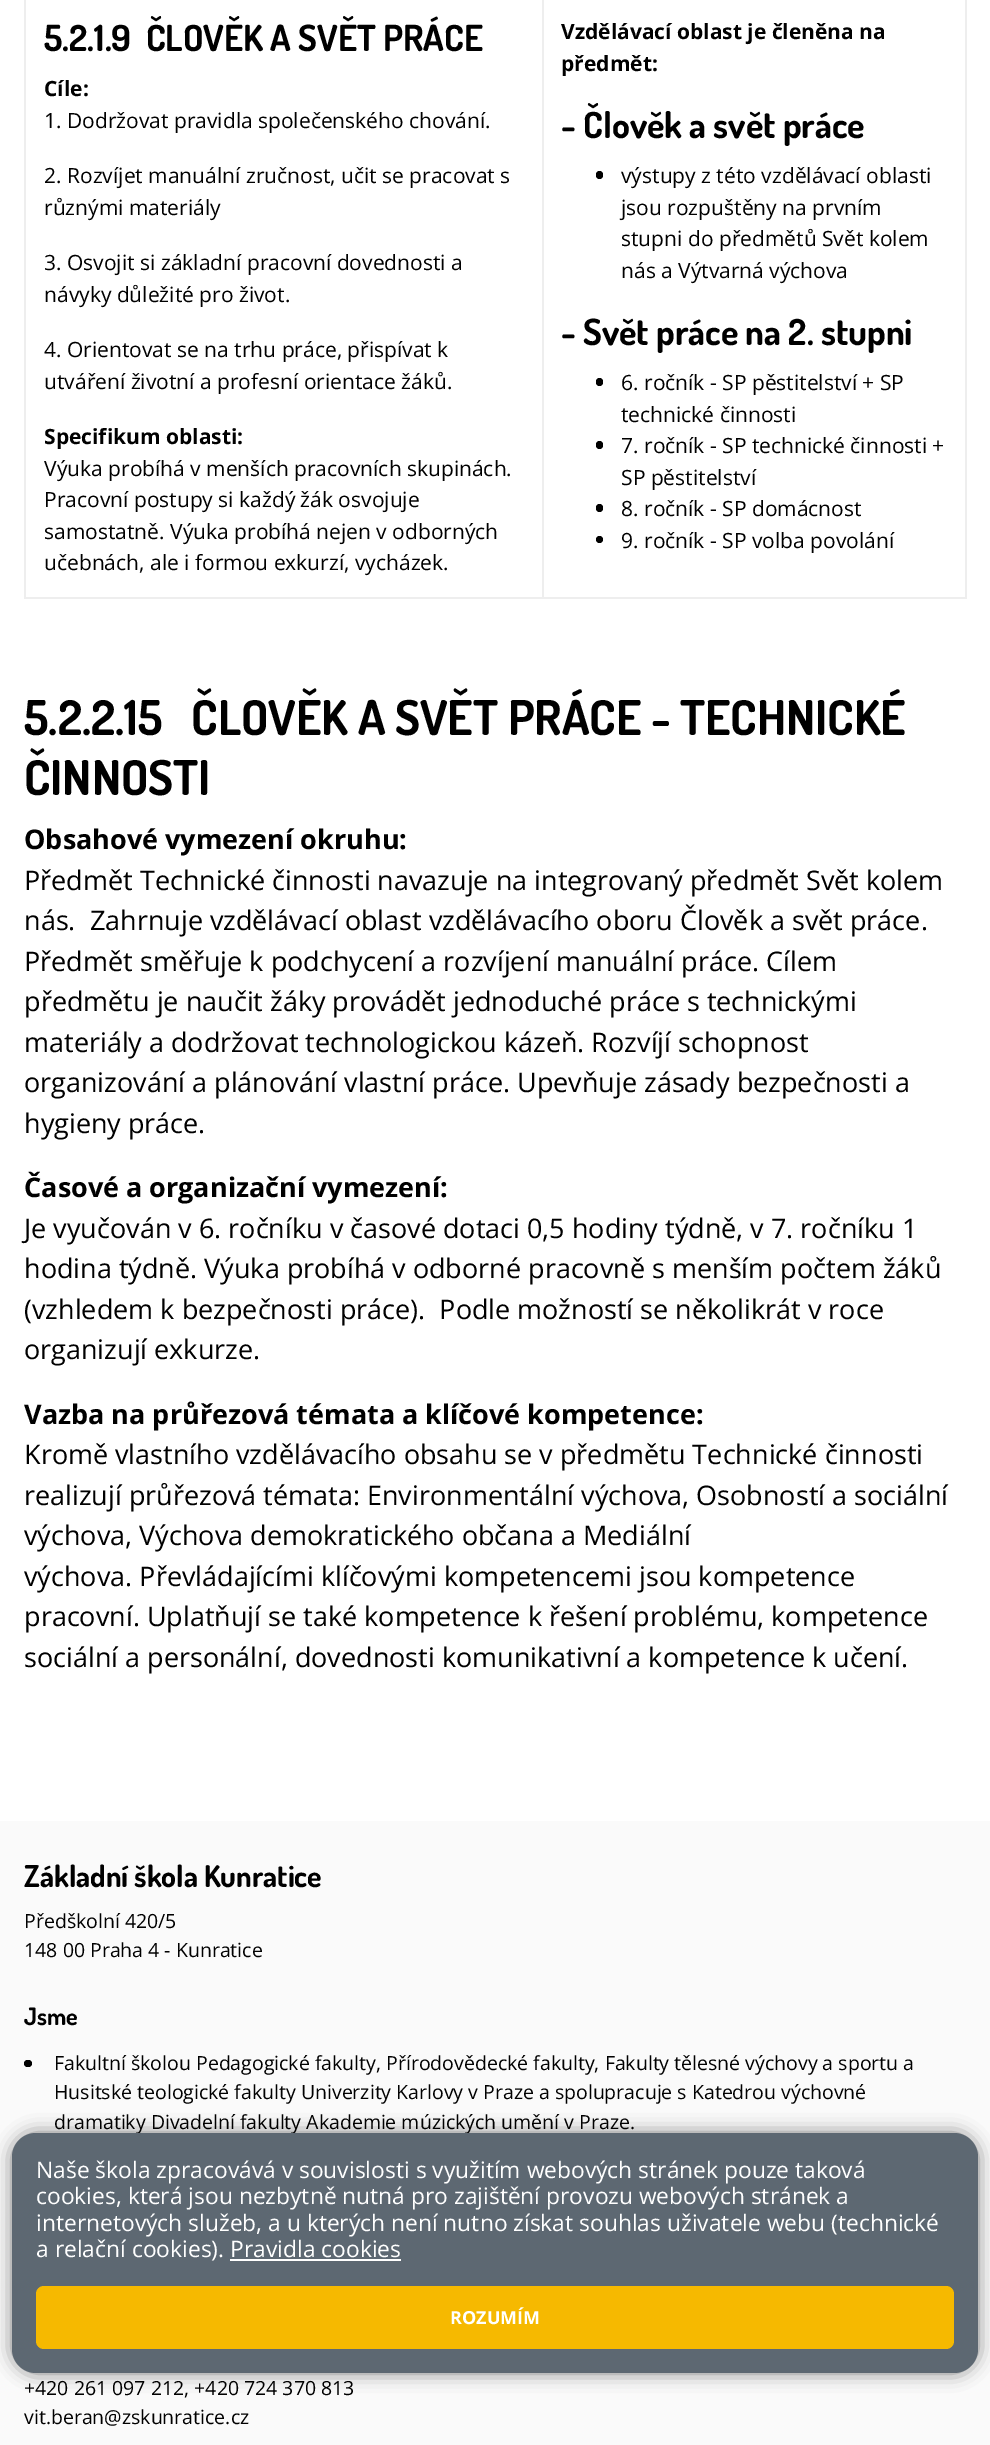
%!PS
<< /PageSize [990 2445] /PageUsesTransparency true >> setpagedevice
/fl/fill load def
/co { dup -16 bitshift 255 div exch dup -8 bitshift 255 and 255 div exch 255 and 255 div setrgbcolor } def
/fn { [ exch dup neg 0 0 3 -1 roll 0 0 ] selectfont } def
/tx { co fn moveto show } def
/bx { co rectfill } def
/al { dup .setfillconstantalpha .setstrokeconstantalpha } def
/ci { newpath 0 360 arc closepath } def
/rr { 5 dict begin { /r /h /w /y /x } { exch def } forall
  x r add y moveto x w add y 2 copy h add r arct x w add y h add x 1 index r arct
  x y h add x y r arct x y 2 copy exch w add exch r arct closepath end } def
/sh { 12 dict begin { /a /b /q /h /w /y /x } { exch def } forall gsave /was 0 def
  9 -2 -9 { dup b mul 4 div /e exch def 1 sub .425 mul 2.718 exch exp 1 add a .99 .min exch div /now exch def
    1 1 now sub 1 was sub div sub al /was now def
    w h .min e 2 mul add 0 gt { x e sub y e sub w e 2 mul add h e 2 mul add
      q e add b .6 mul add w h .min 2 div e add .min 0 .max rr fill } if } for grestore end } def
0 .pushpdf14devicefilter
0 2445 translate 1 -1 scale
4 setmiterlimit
0 0 990 2445 16#FFFFFF bx
965 0 2 599 16#EEEEEE bx
24 597 942 2 16#EEEEEE bx
24 0 2 599 16#EEEEEE bx
542 0 2 599 16#EEEEEE bx
16#000000 co
596 171 7 8 3.5 rr fl
596 378 7 8 3.5 rr fl
596 441 7 8 3.5 rr fl
596 504 7 8 3.5 rr fl
599.5 539.5 3.5 ci fl
0 1821 990 624 16#FAFAFA bx
16#000000 co
24 2060 8 7 3.5 rr fl
12 2133 966 240 24 9 .5 sh
(5.2.1.9  ČLOVĚK A SVĚT PRÁCE) 44 51 /Dosis-Bold 36 16#000000 tx
(Cíle:) 44 96 /OpenSans-Bold 21 16#000000 tx
(1. Dodržovat pravidla společenského chování.) 44 128 /OpenSans-Regular 21 16#000000 tx
(2. Rozvíjet manuální zručnost, učit se pracovat s) 44 183 /OpenSans-Regular 21 16#000000 tx
(různými materiály) 44 215 /OpenSans-Regular 21 16#000000 tx
(3. Osvojit si základní pracovní dovednosti a) 44 270 /OpenSans-Regular 21 16#000000 tx
(návyky důležité pro život.) 44 302 /OpenSans-Regular 21 16#000000 tx
(4. Orientovat se na trhu práce, přispívat k) 44 357 /OpenSans-Regular 21 16#000000 tx
(utváření životní a profesní orientace žáků.) 44 389 /OpenSans-Regular 21 16#000000 tx
(Specifikum oblasti:) 44 444 /OpenSans-Bold 21 16#000000 tx
(Výuka probíhá v menších pracovních skupinách.) 44 476 /OpenSans-Regular 21 16#000000 tx
(Pracovní postupy si každý žák osvojuje) 44 507 /OpenSans-Regular 21 16#000000 tx
(samostatně. Výuka probíhá nejen v odborných) 44 539 /OpenSans-Regular 21 16#000000 tx
(učebnách, ale i formou exkurzí, vycházek.) 44 570 /OpenSans-Regular 21 16#000000 tx
(Vzdělávací oblast je členěna na) 561 39 /OpenSans-Bold 21 16#000000 tx
(předmět:) 561 71 /OpenSans-Bold 21 16#000000 tx
(- Člověk a svět práce) 561 138 /Dosis-Bold 36 16#000000 tx
(výstupy z této vzdělávací oblasti) 621 183 /OpenSans-Regular 21 16#000000 tx
(jsou rozpuštěny na prvním) 621 215 /OpenSans-Regular 21 16#000000 tx
(stupni do předmětů Svět kolem) 621 246 /OpenSans-Regular 21 16#000000 tx
(nás a Výtvarná výchova) 621 278 /OpenSans-Regular 21 16#000000 tx
(- Svět práce na 2. stupni) 561 345 /Dosis-Bold 36 16#000000 tx
(6. ročník - SP pěstitelství + SP) 621 390 /OpenSans-Regular 21 16#000000 tx
(technické činnosti) 621 422 /OpenSans-Regular 21 16#000000 tx
(7. ročník - SP technické činnosti +) 621 453 /OpenSans-Regular 21 16#000000 tx
(SP pěstitelství) 621 485 /OpenSans-Regular 21 16#000000 tx
(8. ročník - SP domácnost) 621 516 /OpenSans-Regular 21 16#000000 tx
(9. ročník - SP volba povolání) 621 548 /OpenSans-Regular 21 16#000000 tx
(5.2.2.15   ČLOVĚK A SVĚT PRÁCE - TECHNICKÉ) 24 735 /Dosis-Bold 48 16#000000 tx
(ČINNOSTI) 24 795 /Dosis-Bold 48 16#000000 tx
(Obsahové vymezení okruhu:) 24 849 /OpenSans-Bold 27 16#000000 tx
(Předmět Technické činnosti navazuje na integrovaný předmět Svět kolem) 24 890 /OpenSans-Regular 27 16#000000 tx
(nás.  Zahrnuje vzdělávací oblast vzdělávacího oboru Člověk a svět práce.) 24 930 /OpenSans-Regular 27 16#000000 tx
(Předmět směřuje k podchycení a rozvíjení manuální práce. Cílem) 24 971 /OpenSans-Regular 27 16#000000 tx
(předmětu je naučit žáky provádět jednoduché práce s technickými) 24 1011 /OpenSans-Regular 27 16#000000 tx
(materiály a dodržovat technologickou kázeň. Rozvíjí schopnost) 24 1052 /OpenSans-Regular 27 16#000000 tx
(organizování a plánování vlastní práce. Upevňuje zásady bezpečnosti a) 24 1092 /OpenSans-Regular 27 16#000000 tx
(hygieny práce.) 24 1133 /OpenSans-Regular 27 16#000000 tx
(Časové a organizační vymezení:) 24 1197 /OpenSans-Bold 27 16#000000 tx
(Je vyučován v 6. ročníku v časové dotaci 0,5 hodiny týdně, v 7. ročníku 1) 24 1238 /OpenSans-Regular 27 16#000000 tx
(hodina týdně. Výuka probíhá v odborné pracovně s menším počtem žáků) 24 1278 /OpenSans-Regular 27 16#000000 tx
(\(vzhledem k bezpečnosti práce\).  Podle možností se několikrát v roce) 24 1319 /OpenSans-Regular 27 16#000000 tx
(organizují exkurze.) 24 1359 /OpenSans-Regular 27 16#000000 tx
(Vazba na průřezová témata a klíčové kompetence:) 24 1424 /OpenSans-Bold 27 16#000000 tx
(Kromě vlastního vzdělávacího obsahu se v předmětu Technické činnosti) 24 1464 /OpenSans-Regular 27 16#000000 tx
(realizují průřezová témata: Environmentální výchova, Osobností a sociální) 24 1505 /OpenSans-Regular 27 16#000000 tx
(výchova, Výchova demokratického občana a Mediální) 24 1545 /OpenSans-Regular 27 16#000000 tx
(výchova. Převládajícími klíčovými kompetencemi jsou kompetence) 24 1586 /OpenSans-Regular 27 16#000000 tx
(pracovní. Uplatňují se také kompetence k řešení problému, kompetence) 24 1626 /OpenSans-Regular 27 16#000000 tx
(sociální a personální, dovednosti komunikativní a kompetence k učení.) 24 1667 /OpenSans-Regular 27 16#000000 tx
(Základní škola Kunratice) 24 1887 /Dosis-Bold 30 16#000000 tx
(Předškolní 420/5) 24 1928 /OpenSans-Regular 19.5 16#000000 tx
(148 00 Praha 4 - Kunratice) 24 1957 /OpenSans-Regular 19.5 16#000000 tx
(Jsme) 24 2025 /Dosis-Bold 24 16#000000 tx
(Fakultní školou Pedagogické fakulty, Přírodovědecké fakulty, Fakulty tělesné výchovy a sportu a) 54 2070 /OpenSans-Regular 19.5 16#000000 tx
(Husitské teologické fakulty Univerzity Karlovy v Praze a spolupracuje s Katedrou výchovné) 54 2099 /OpenSans-Regular 19.5 16#000000 tx
(dramatiky Divadelní fakulty Akademie múzických umění v Praze.) 54 2129 /OpenSans-Regular 19.5 16#000000 tx
(+420 261 097 212, +420 724 370 813) 24 2395 /OpenSans-Regular 19.5 16#000000 tx
(vit.beran@zskunratice.cz) 24 2424 /OpenSans-Regular 19.5 16#000000 tx
16#5D6872 co
12 2133 966 240 24 rr fl
(Naše škola zpracovává v souvislosti s využitím webových stránek pouze taková) 36 2178 /OpenSans-Regular 22.8 16#FFFFFF tx
(cookies, která jsou nezbytně nutná pro zajištění provozu webových stránek a) 36 2204 /OpenSans-Regular 22.8 16#FFFFFF tx
(internetových služeb, a u kterých není nutno získat souhlas uživatele webu \(technické) 36 2231 /OpenSans-Regular 22.8 16#FFFFFF tx
(a relační cookies\). Pravidla cookies) 36 2257 /OpenSans-Regular 22.8 16#FFFFFF tx
230 2259 171 2 16#FFFFFF bx
16#F6B900 co
36 2286 918 63 8 rr fl
(ROZUMÍM) 450 2324 /OpenSans-Bold 18 16#FFFFFF tx
.poppdf14devicefilter showpage
